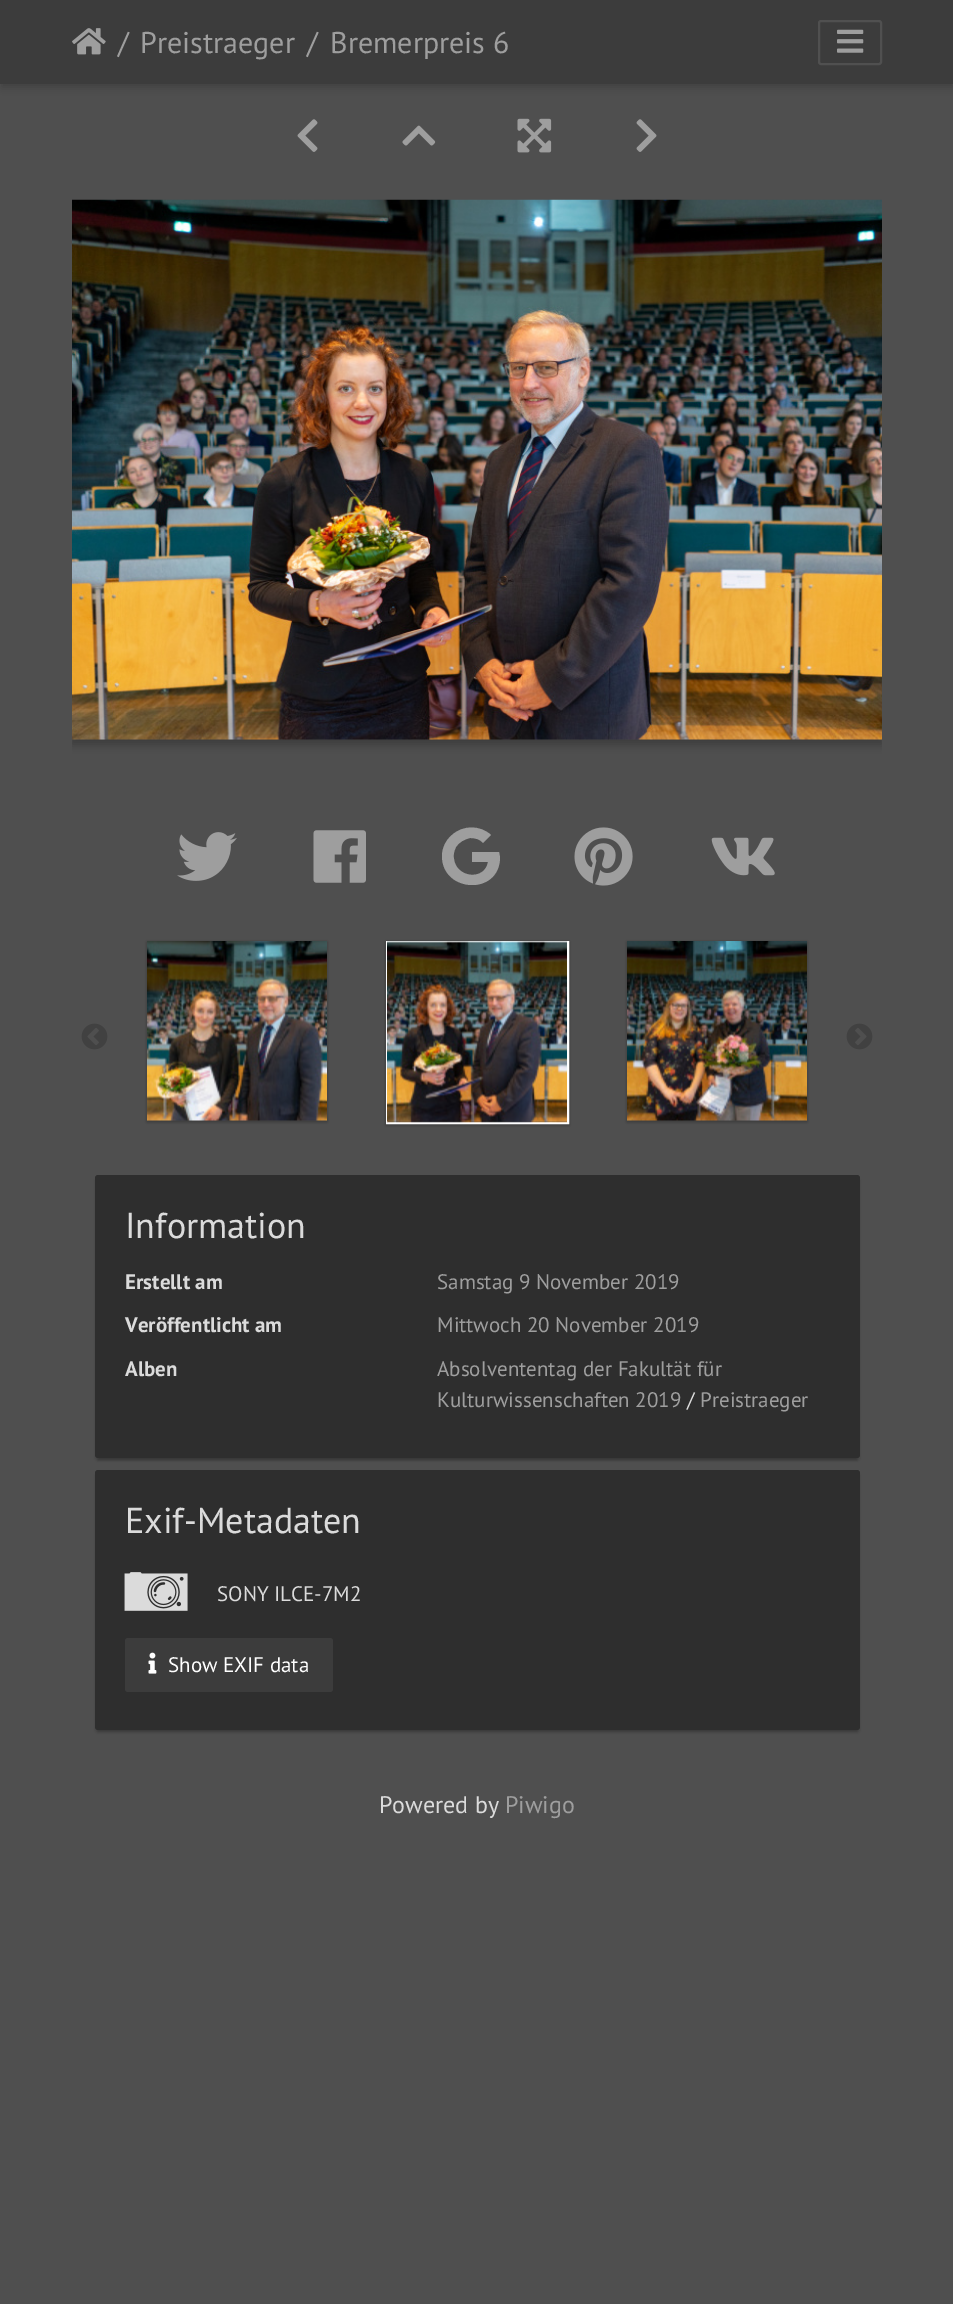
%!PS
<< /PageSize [953 2304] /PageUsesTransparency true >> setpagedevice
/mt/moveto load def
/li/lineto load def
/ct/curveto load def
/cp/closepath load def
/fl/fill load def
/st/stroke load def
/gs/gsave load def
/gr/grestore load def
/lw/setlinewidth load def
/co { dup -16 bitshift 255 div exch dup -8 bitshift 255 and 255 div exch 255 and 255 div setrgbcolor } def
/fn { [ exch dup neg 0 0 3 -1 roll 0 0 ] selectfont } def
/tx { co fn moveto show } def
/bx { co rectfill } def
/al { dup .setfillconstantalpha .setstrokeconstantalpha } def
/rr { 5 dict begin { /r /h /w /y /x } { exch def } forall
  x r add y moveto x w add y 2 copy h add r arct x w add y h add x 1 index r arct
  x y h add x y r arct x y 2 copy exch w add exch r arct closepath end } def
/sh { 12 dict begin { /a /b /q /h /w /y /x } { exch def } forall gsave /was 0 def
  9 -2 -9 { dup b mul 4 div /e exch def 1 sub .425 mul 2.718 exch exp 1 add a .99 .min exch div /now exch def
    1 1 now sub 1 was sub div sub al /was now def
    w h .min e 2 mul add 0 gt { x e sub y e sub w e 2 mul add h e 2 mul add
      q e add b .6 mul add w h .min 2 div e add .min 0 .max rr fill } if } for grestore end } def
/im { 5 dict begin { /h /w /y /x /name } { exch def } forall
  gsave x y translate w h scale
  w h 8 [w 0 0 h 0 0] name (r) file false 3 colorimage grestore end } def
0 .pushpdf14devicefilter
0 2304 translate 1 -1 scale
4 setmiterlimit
0 0 953 2304 16#4F4F4F bx
16#000000 co
2 6 951 81 0 4 .2 sh
0 0 953 84 16#3C3C3C bx
(media/1.raw) 72 28 34 27 im
16#505050 co
2 lw
819 21 62 43 2 rr st
(media/2.raw) 837 29 27 24 im
(media/3.raw) 297 119 21 33 im
(media/4.raw) 402 125 34 21 im
(media/5.raw) 517 118 35 35 im
(media/6.raw) 636 119 21 33 im
gs
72 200 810 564 rectclip
16#000000 co
72 204 810 540 0 4.5 .23 sh
gr
(media/7.raw) 72 199 810 541 im
(media/8.raw) 177 832 60 49 im
(media/9.raw) 313 830 53 53 im
16#9E9E9E co
500 857 mt 500 896 442 893 442 856 ct 442 848 446 840 452 835 ct 463 825 480 825 491 835 ct 483 843 li 480 839 475 838 470 838 ct 465 839 459 842 456 847 ct 454 851 453 855 454 859 ct 456 878 485 881 488 862 ct 472 862 li 472 852 li 499 852 li cp fl
(media/10.raw) 574 827 59 59 im
(media/11.raw) 711 837 64 39 im
(media/12.raw) 81 1023 27 27 im
16#000000 co
147 942 180 180 0 1.5 .24 sh
(media/13.raw) 147 941 180 180 im
386 942 183 183 0 1.5 .24 sh
16#FFFFFF co
387 942 181 181 rectstroke
(media/14.raw) 387 941 180 182 im
16#000000 co
627 942 180 180 0 1.5 .24 sh
(media/15.raw) 627 941 180 180 im
(media/16.raw) 846 1023 27 27 im
98 1182 759 278 0 1 .2 sh
95 1178 765 283 3 1.5 .14 sh
16#2E2E2E co
95 1175 765 283 3 rr fl
16#000000 co
98 1478 759 253 0 1 .2 sh
95 1473 765 260 3 1.5 .14 sh
16#2E2E2E co
95 1470 765 260 3 rr fl
(media/17.raw) 124 1572 64 39 im
16#3C3C3C co
125 1638 208 54 3 rr fl
(media/18.raw) 148 1652 9 22 im
(/) 118 53 /PTSans-Regular 30 16#9E9E9E tx
(Preistraeger) 140 53 /PTSans-Regular 30 16#9E9E9E tx
(/) 307 53 /PTSans-Regular 30 16#9E9E9E tx
(Bremerpreis 6) 330 53 /PTSans-Regular 30 16#9E9E9E tx
(Information) 125 1238 /PTSans-Regular 36 16#DBDBDB tx
(Erstellt am) 125 1289 /PTSans-Bold 21 16#DBDBDB tx
(Samstag 9 November 2019) 437 1289 /PTSans-Regular 21 16#9E9E9E tx
(Veröffentlicht am) 125 1332 /PTSans-Bold 21 16#DBDBDB tx
(Mittwoch 20 November 2019) 437 1332 /PTSans-Regular 21 16#9E9E9E tx
(Alben) 125 1376 /PTSans-Bold 21 16#DBDBDB tx
(Absolvententag der Fakultät für) 437 1376 /PTSans-Regular 21 16#9E9E9E tx
(Kulturwissenschaften 2019) 437 1407 /PTSans-Regular 21 16#9E9E9E tx
(/) 687 1407 /PTSans-Regular 21 16#DBDBDB tx
(Preistraeger) 700 1407 /PTSans-Regular 21 16#9E9E9E tx
(Exif-Metadaten) 125 1533 /PTSans-Regular 36 16#DBDBDB tx
(SONY ILCE-7M2) 217 1601 /PTSans-Regular 21 16#DBDBDB tx
(Show EXIF data) 168 1672 /PTSans-Regular 21 16#FFFFFF tx
(Powered by) 379 1813 /PTSans-Regular 24 16#DBDBDB tx
(Piwigo) 505 1813 /PTSans-Regular 24 16#9E9E9E tx
.poppdf14devicefilter showpage
